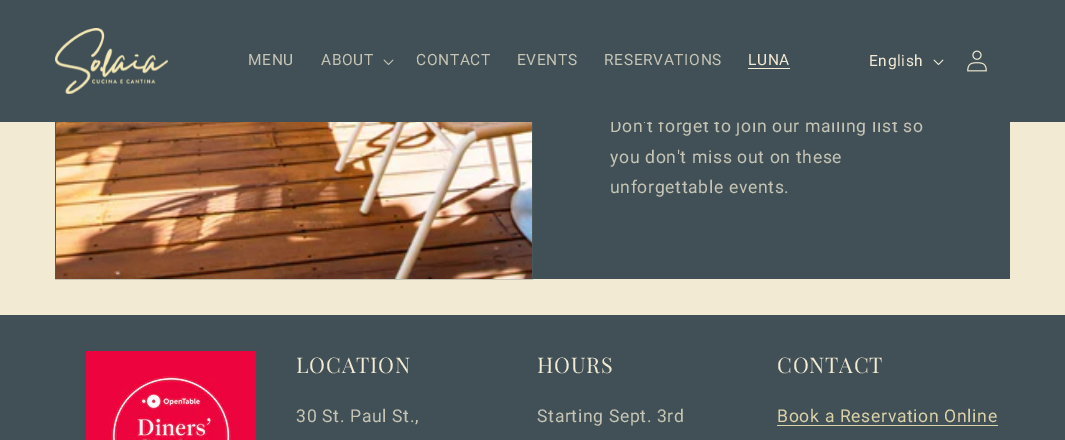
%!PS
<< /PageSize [1065 440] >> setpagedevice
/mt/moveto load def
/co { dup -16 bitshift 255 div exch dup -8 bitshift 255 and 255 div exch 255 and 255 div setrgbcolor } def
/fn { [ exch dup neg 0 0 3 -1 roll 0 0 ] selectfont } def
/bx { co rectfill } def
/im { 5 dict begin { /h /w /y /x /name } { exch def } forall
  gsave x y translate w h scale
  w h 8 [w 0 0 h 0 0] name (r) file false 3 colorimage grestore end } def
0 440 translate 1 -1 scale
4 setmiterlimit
0 0 1065 440 16#F2EAD3 bx
16#4A585C co
55.5 -.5 477 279 rectstroke
(media/5.raw) 56 122 476 157 im
533 122 477 157 16#415056 bx
0 315 1065 125 16#415056 bx
(media/6.raw) 86 351 170 89 im
777 425 221 1 16#DBD2A8 bx
/Roboto-Regular 17.6 fn
16#C6C4B4 co
610 132 mt .65 0 (Don't forget to join our mailing list so) ashow
0 0 1065 122 16#415056 bx
(media/3.raw) 933 59 11 6 im
/Roboto-Regular 15.5 fn
16#F2EAD3 co
869 66 mt .65 0 (English) ashow
(media/2.raw) 383 59 11 6 im
16#C6C4B4 co
321 65 mt .65 0 (ABOUT) ashow
(media/4.raw) 967 50 20 22 im
16#F2EAD3 co
748 65 mt .65 0 (LUNA) ashow
748 68 42 1 16#F2EAD3 bx
16#C6C4B4 co
604 65 mt .65 0 (RESERVATIONS) ashow
517 65 mt .65 0 (EVENTS) ashow
416 65 mt .65 0 (CONTACT) ashow
248 65 mt .65 0 (MENU) ashow
(media/1.raw) 55 28 113 66 im
/Roboto-Regular 17.6 fn
610 163 mt .65 0 (you don't miss out on these) ashow
610 193 mt .65 0 (unforgettable events.) ashow
/PlayfairDisplay-Regular 21.5 fn
16#F2EAD3 co
296 373 mt .75 0 (LOCATION) ashow
/Roboto-Regular 17.6 fn
16#C6C4B4 co
296 422 mt .65 0 (30 St. Paul St.,) ashow
/PlayfairDisplay-Regular 21.5 fn
16#F2EAD3 co
537 373 mt .75 0 (HOURS) ashow
/Roboto-Regular 17.6 fn
16#C6C4B4 co
537 422 mt .65 0 (Starting Sept. 3rd) ashow
/PlayfairDisplay-Regular 21.5 fn
16#F2EAD3 co
777 373 mt .75 0 (CONTACT) ashow
/Roboto-Regular 17.6 fn
16#DBD2A8 co
777 422 mt .65 0 (Book a Reservation Online) ashow
showpage
